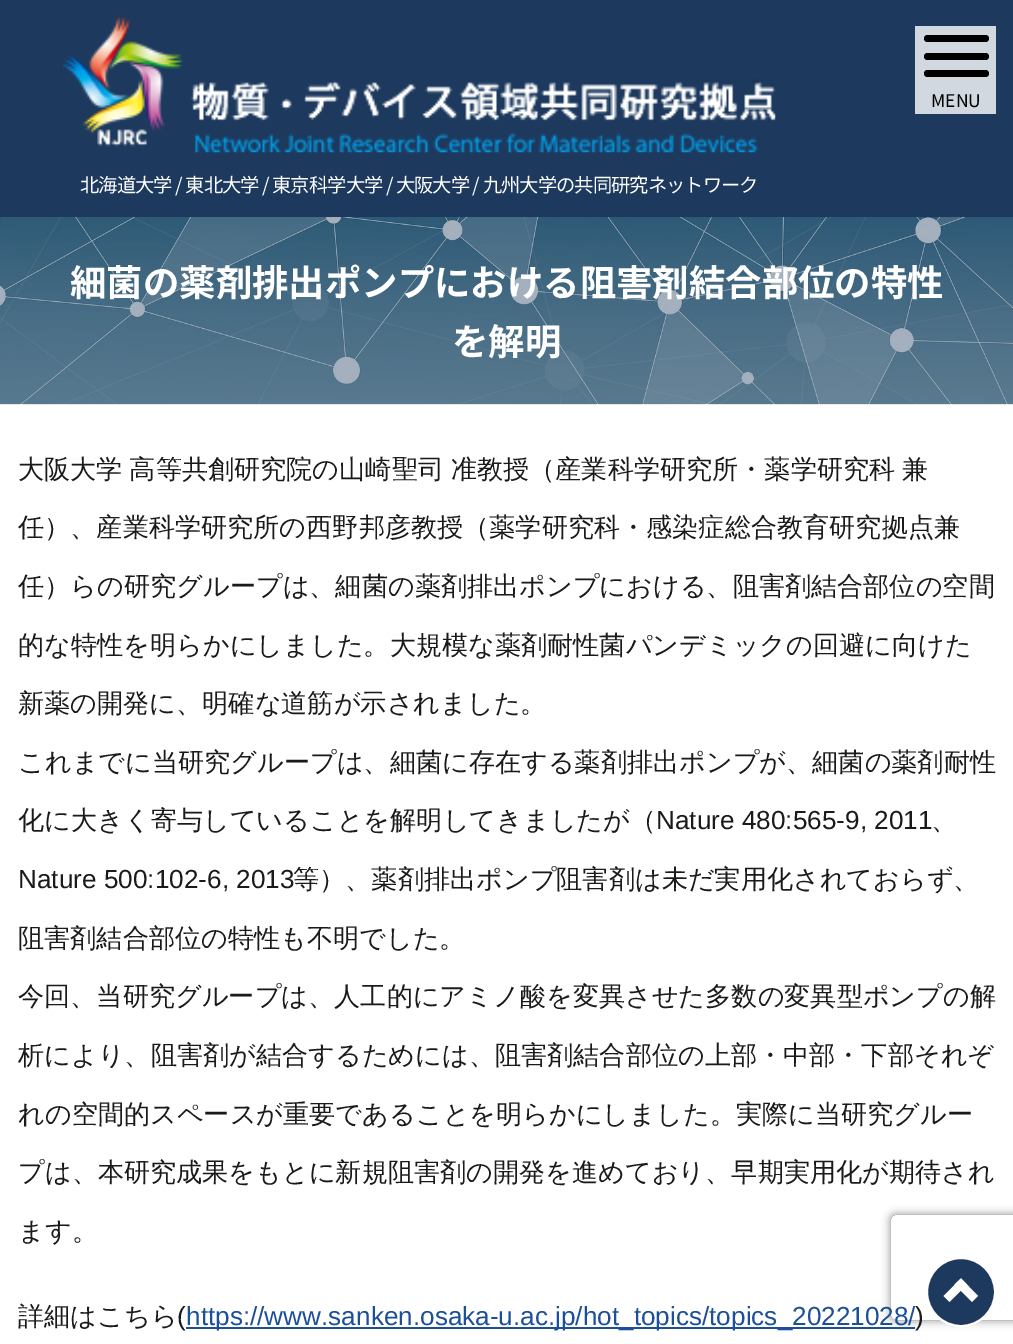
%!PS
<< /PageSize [1013 1344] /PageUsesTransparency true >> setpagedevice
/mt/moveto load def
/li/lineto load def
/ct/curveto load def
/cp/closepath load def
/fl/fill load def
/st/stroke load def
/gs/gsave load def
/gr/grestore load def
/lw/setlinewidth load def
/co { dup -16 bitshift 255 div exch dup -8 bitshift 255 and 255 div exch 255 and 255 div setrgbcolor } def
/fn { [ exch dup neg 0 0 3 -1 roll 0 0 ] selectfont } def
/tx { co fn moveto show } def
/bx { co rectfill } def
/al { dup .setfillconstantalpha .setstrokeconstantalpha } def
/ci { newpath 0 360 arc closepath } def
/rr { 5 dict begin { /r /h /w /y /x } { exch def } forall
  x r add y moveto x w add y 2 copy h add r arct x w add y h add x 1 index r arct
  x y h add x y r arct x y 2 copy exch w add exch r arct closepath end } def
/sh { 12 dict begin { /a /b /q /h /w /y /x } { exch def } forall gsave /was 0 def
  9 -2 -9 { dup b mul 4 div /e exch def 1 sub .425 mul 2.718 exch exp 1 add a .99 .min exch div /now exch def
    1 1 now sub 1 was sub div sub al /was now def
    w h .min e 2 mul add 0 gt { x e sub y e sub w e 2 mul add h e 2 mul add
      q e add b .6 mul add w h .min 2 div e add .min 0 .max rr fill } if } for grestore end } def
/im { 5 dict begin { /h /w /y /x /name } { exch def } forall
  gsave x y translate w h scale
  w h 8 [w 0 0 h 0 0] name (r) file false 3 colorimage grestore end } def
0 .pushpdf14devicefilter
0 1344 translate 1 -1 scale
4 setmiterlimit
0 0 1013 1344 16#FFFFFF bx
0 0 1013 217 16#1D3A5E bx
915 26 81 88 16#D2D8DF bx
16#000000 co
924 35 65 7 3.5 rr fl
924 53 65 7 3.5 rr fl
924 70 65 7 3.5 rr fl
(media/1.raw) 63 17 713 136 im
(media/2.raw) 0 217 1013 188 im
186 1327 729 2 16#1B4F98 bx
gs
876 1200 mt 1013 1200 li 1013 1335 li 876 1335 li cp 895 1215 mt 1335 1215 li 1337 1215 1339 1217 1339 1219 ct 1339 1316 li 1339 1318 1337 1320 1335 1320 ct 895 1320 li 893 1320 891 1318 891 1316 ct 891 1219 li 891 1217 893 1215 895 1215 ct cp eoclip newpath
16#808080 co
891 1215 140 105 4 4.5 1 sh
gr
16#1D3A5E co
961 1292 34 ci gs fl gr
16#FFFFFF co
2 lw
st
961 1278.5 mt 967 1284.5 li 949.5 1302 li 943.5 1296 li cp fl
961 1278.5 mt 978 1296 li 972 1302 li 954.5 1284.5 li cp fl
(MENU) 931 107 /NotoSansJP-Regular 17.5 16#000000 tx
/NotoSansJP-Regular 19.25 fn
16#FFFFFF co
80 192 mt -.9 0 (北海道大学 / 東北大学 / 東京科学大学 / 大阪大学 / 九州大学の共同研究ネットワーク) ashow
(細菌の薬剤排出ポンプにおける阻害剤結合部位の特性) 70 296 /NotoSansJP-Bold 36.4 16#FFFFFF tx
(を解明) 452 355 /NotoSansJP-Bold 36.4 16#FFFFFF tx
/WenQuanYiZenHei-Medium 26.15 fn
16#1A1A1A co
18 478 mt -1 0 32 (大阪大学 高等共創研究院の山崎聖司 准教授（産業科学研究所・薬学研究科 兼) widthshow
(任）、産業科学研究所の西野邦彦教授（薬学研究科・感染症総合教育研究拠点兼) 18 536 /WenQuanYiZenHei-Medium 26.15 16#1A1A1A tx
(任）らの研究グループは、細菌の薬剤排出ポンプにおける、阻害剤結合部位の空間) 18 595 /WenQuanYiZenHei-Medium 26.15 16#1A1A1A tx
(的な特性を明らかにしました。大規模な薬剤耐性菌パンデミックの回避に向けた) 18 654 /WenQuanYiZenHei-Medium 26.15 16#1A1A1A tx
(新薬の開発に、明確な道筋が示されました。) 18 712 /WenQuanYiZenHei-Medium 26.15 16#1A1A1A tx
(これまでに当研究グループは、細菌に存在する薬剤排出ポンプが、細菌の薬剤耐性) 18 771 /WenQuanYiZenHei-Medium 26.15 16#1A1A1A tx
(化に大きく寄与していることを解明してきましたが（) 18 829 /WenQuanYiZenHei-Medium 26.15 16#1A1A1A tx
(Nature 480:565-9, 2011) 656 829 /LiberationSans-Regular 26.15 16#1A1A1A tx
(、) 931 829 /WenQuanYiZenHei-Medium 26.15 16#1A1A1A tx
(Nature 500:102-6, 2013) 18 888 /LiberationSans-Regular 26.15 16#1A1A1A tx
(等）、薬剤排出ポンプ阻害剤は未だ実用化されておらず、) 293 888 /WenQuanYiZenHei-Medium 26.15 16#1A1A1A tx
(阻害剤結合部位の特性も不明でした。) 18 947 /WenQuanYiZenHei-Medium 26.15 16#1A1A1A tx
(今回、当研究グループは、人工的にアミノ酸を変異させた多数の変異型ポンプの解) 18 1005 /WenQuanYiZenHei-Medium 26.15 16#1A1A1A tx
(析により、阻害剤が結合するためには、阻害剤結合部位の上部・中部・下部それぞ) 18 1064 /WenQuanYiZenHei-Medium 26.15 16#1A1A1A tx
(れの空間的スペースが重要であることを明らかにしました。実際に当研究グルー) 18 1123 /WenQuanYiZenHei-Medium 26.15 16#1A1A1A tx
(プは、本研究成果をもとに新規阻害剤の開発を進めており、早期実用化が期待され) 18 1181 /WenQuanYiZenHei-Medium 26.15 16#1A1A1A tx
(ます。) 18 1240 /WenQuanYiZenHei-Medium 26.15 16#1A1A1A tx
(詳細はこちら) 18 1325 /WenQuanYiZenHei-Medium 26.15 16#1A1A1A tx
(\() 177 1325 /LiberationSans-Regular 26.15 16#1A1A1A tx
(https://www.sanken.osaka-u.ac.jp/hot_topics/topics_20221028/) 186 1325 /LiberationSans-Regular 26.15 16#1B4F98 tx
(\)) 915 1325 /LiberationSans-Regular 26.15 16#1A1A1A tx
.poppdf14devicefilter showpage
